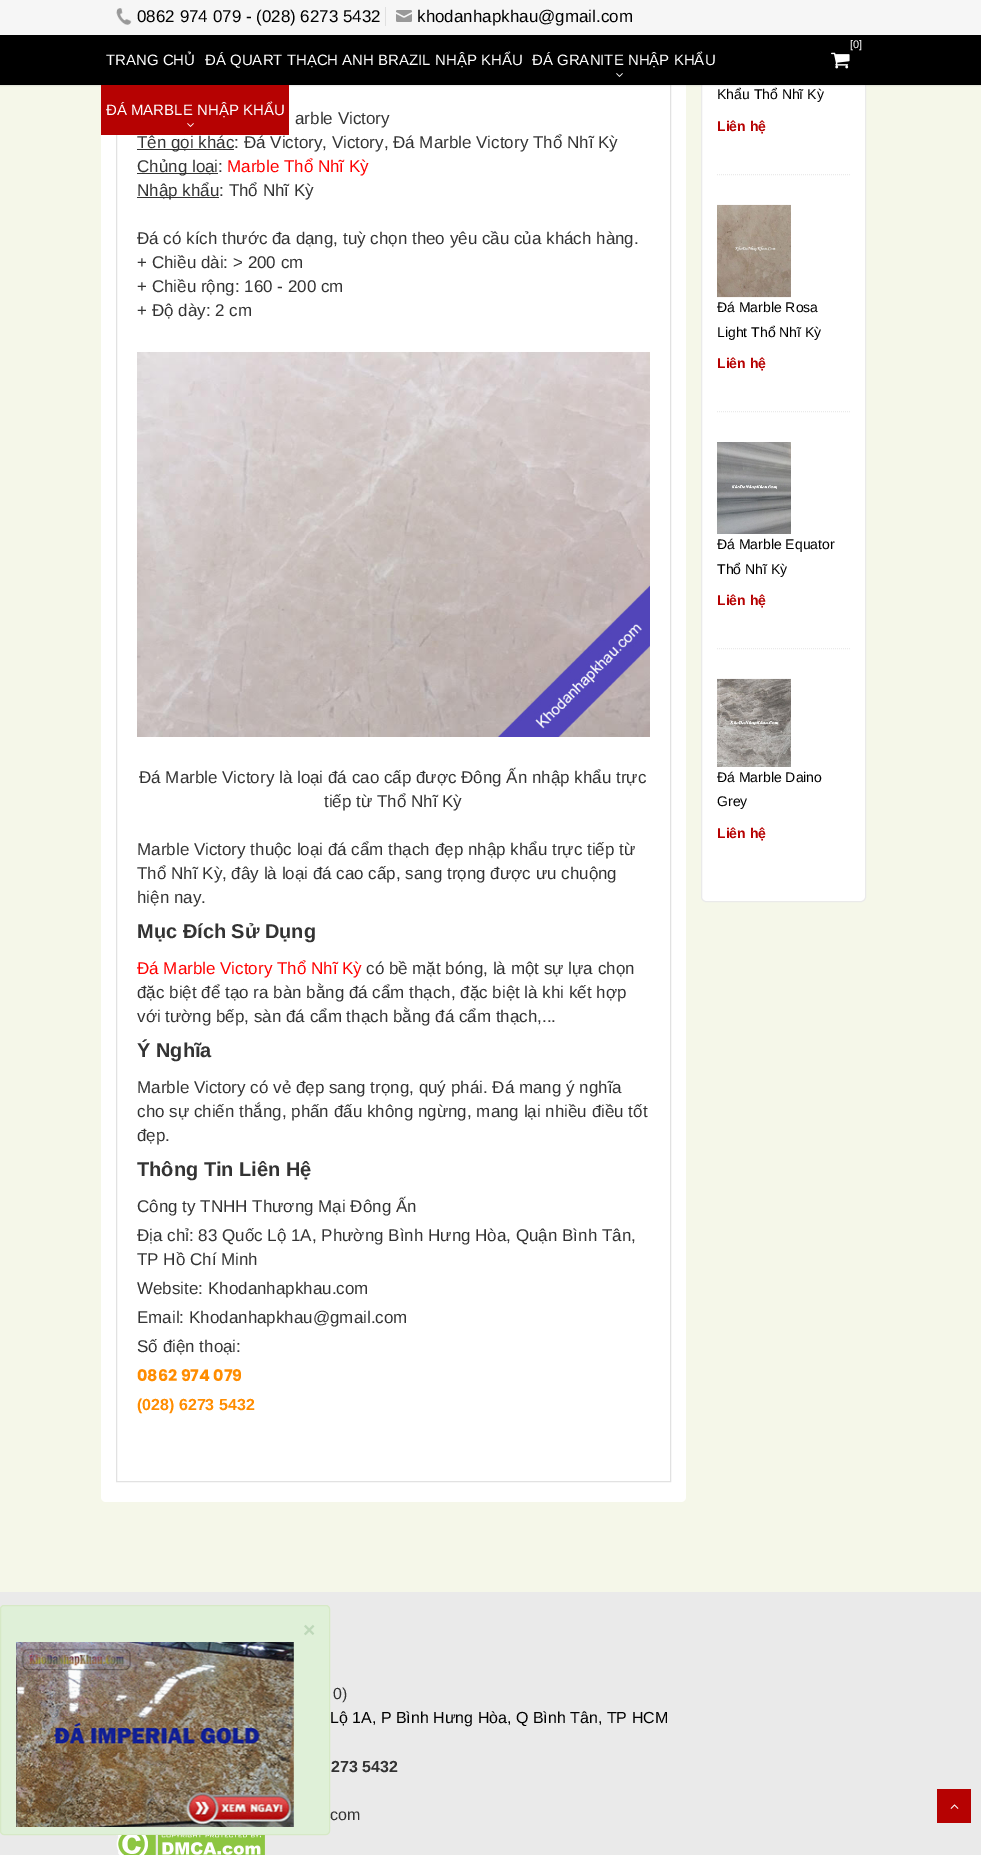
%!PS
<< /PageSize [981 1855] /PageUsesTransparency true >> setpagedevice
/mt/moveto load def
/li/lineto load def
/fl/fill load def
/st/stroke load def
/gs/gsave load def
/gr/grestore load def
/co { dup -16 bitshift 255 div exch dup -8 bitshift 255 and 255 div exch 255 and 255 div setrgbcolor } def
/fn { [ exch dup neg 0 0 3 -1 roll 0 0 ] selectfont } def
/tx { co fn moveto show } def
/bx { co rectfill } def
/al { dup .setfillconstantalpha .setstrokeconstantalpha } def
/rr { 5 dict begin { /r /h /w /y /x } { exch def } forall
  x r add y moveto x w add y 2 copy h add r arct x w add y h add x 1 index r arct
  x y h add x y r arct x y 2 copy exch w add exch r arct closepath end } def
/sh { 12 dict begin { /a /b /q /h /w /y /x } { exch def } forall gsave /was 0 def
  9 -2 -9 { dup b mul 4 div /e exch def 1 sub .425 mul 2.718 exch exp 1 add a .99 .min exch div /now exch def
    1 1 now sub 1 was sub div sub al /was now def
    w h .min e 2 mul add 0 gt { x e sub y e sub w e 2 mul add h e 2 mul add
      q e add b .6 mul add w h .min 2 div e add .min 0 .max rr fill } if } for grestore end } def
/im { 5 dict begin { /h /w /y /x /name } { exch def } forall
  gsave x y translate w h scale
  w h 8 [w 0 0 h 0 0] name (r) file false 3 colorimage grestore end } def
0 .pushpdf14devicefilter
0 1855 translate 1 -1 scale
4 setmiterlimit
0 0 981 1855 16#F5F7E9 bx
16#FFFFFF co
101 -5 585 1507 5 rr fl
16#E2E2E2 co
116.5 -.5 554 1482 rectstroke
16#FFFFFF co
701.5 -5.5 164 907 4.5 rr gs fl gr
16#EAEAEA co
st
0 0 981 35 16#F6F6F6 bx
385 7 1 19 16#E0E0E0 bx
(media/1.raw) 116 8 16 17 im
(media/2.raw) 396 10 16 12 im
16#323232 co
0 36 981 50 0 .5 .1 sh
0 35 981 50 16#000000 bx
(media/3.raw) 831 52 19 17 im
(media/4.raw) 616 73 7 4 im
137 149 97 1 16#333333 bx
137 173 81 1 16#333333 bx
137 197 82 1 16#333333 bx
(media/7.raw) 137 352 513 385 im
16#EAEAEA co
[1 1] 0 setdash
717 174.5 mt 850 174.5 li st
717 411.5 mt 850 411.5 li st
(media/8.raw) 717 204 74 94 im
717 648.5 mt 850 648.5 li st
(media/9.raw) 717 442 74 92 im
(media/10.raw) 717 678 74 89 im
0 1592 981 263 16#EAEAEA bx
16#DFF0D8 co
.5 1605.5 329 229 3.5 rr gs fl gr
16#D6E9C6 co
[] 0 setdash
st
(media/11.raw) 16 1642 278 185 im
(media/12.raw) 116 1835 149 20 im
937 1789 34 34 16#B60202 bx
(media/13.raw) 950 1804 9 5 im
(0862 974 079 - \(028\) 6273 5432) 137 22 /LiberationSans-Regular 17 16#000000 tx
(khodanhapkhau@gmail.com) 417 22 /LiberationSans-Regular 17 16#000000 tx
([0]) 850 48 /LiberationSans-Regular 11 16#FFFFFF tx
(TRANG CHỦ) 106 65 /LiberationSans-Regular 15 16#FFFFFF tx
(ĐÁ QUART THẠCH ANH BRAZIL NHẬP KHẨU) 205 65 /LiberationSans-Regular 15 16#FFFFFF tx
(ĐÁ GRANITE NHẬP KHẨU) 532 65 /LiberationSans-Regular 15 16#FFFFFF tx
(arble Victory) 295 124 /LiberationSans-Regular 17 16#333333 tx
(media/6.raw) 368 123 6 2 im
(Tên gọi khác: Đá Victory, Victory, Đá Marble Victory Thổ Nhĩ Kỳ) 137 148 /LiberationSans-Regular 17 16#333333 tx
101 85 188 50 16#B60202 bx
(media/5.raw) 187 123 7 4 im
(ĐÁ MARBLE NHẬP KHẨU) 106 115 /LiberationSans-Regular 15 16#FFFFFF tx
(Chủng loại:) 137 172 /LiberationSans-Regular 17 16#333333 tx
(Marble Thổ Nhĩ Kỳ) 227 172 /LiberationSans-Regular 17 16#FF0000 tx
(Nhập khẩu: Thổ Nhĩ Kỳ) 137 196 /LiberationSans-Regular 17 16#333333 tx
(Đá có kích thước đa dạng, tuỳ chọn theo yêu cầu của khách hàng.) 137 244 /LiberationSans-Regular 17 16#333333 tx
(+ Chiều dài: > 200 cm) 137 268 /LiberationSans-Regular 17 16#333333 tx
(+ Chiều rộng: 160 - 200 cm) 137 292 /LiberationSans-Regular 17 16#333333 tx
(+ Độ dày: 2 cm) 137 316 /LiberationSans-Regular 17 16#333333 tx
(Đá Marble Victory là loại đá cao cấp được Đông Ấn nhập khẩu trực) 139 783 /LiberationSans-Regular 17 16#333333 tx
(tiếp từ Thổ Nhĩ Kỳ) 324 807 /LiberationSans-Regular 17 16#333333 tx
(Marble Victory thuộc loại đá cẩm thạch đẹp nhập khẩu trực tiếp từ) 137 855 /LiberationSans-Regular 17 16#333333 tx
(Thổ Nhĩ Kỳ, đây là loại đá cao cấp, sang trọng được ưu chuộng) 137 879 /LiberationSans-Regular 17 16#333333 tx
(hiện nay.) 137 903 /LiberationSans-Regular 17 16#333333 tx
(Mục Đích Sử Dụng) 137 938 /LiberationSans-Bold 20 16#333333 tx
(Đá Marble Victory Thổ Nhĩ Kỳ) 137 974 /LiberationSans-Regular 17 16#FF0000 tx
(có bề mặt bóng, là một sự lựa chọn) 366 974 /LiberationSans-Regular 17 16#333333 tx
(đặc biệt để tạo ra bàn bằng đá cẩm thạch, đặc biệt là khi kết hợp) 137 998 /LiberationSans-Regular 17 16#333333 tx
(với tường bếp, sàn đá cẩm thạch bằng đá cẩm thạch,...) 137 1022 /LiberationSans-Regular 17 16#333333 tx
(Ý Nghĩa) 137 1057 /LiberationSans-Bold 20 16#333333 tx
(Marble Victory có vẻ đẹp sang trọng, quý phái. Đá mang ý nghĩa) 137 1093 /LiberationSans-Regular 17 16#333333 tx
(cho sự chiến thắng, phấn đấu không ngừng, mang lại nhiều điều tốt) 137 1117 /LiberationSans-Regular 17 16#333333 tx
(đẹp.) 137 1141 /LiberationSans-Regular 17 16#333333 tx
(Thông Tin Liên Hệ) 137 1176 /LiberationSans-Bold 20 16#333333 tx
(Công ty TNHH Thương Mại Đông Ấn) 137 1212 /LiberationSans-Regular 17 16#333333 tx
(Địa chỉ: 83 Quốc Lộ 1A, Phường Bình Hưng Hòa, Quận Bình Tân,) 137 1241 /LiberationSans-Regular 17 16#333333 tx
(TP Hồ Chí Minh) 137 1265 /LiberationSans-Regular 17 16#333333 tx
(Website: Khodanhapkhau.com) 137 1294 /LiberationSans-Regular 17 16#333333 tx
(Email: Khodanhapkhau@gmail.com) 137 1323 /LiberationSans-Regular 17 16#333333 tx
(Số điện thoại:) 137 1352 /LiberationSans-Regular 17 16#333333 tx
(0862 974 079) 137 1381 /Poppins-Bold 16 16#FF8C00 tx
(\(028\) 6273 5432) 137 1410 /LiberationSans-Bold 16 16#FF8C00 tx
(Khẩu Thổ Nhĩ Kỳ) 717 99 /LiberationSans-Regular 14 16#000000 tx
(Liên hệ) 717 131 /LiberationSans-Bold 14 16#B60202 tx
(Đá Marble Rosa) 717 312 /LiberationSans-Regular 14 16#000000 tx
(Light Thổ Nhĩ Kỳ) 717 337 /LiberationSans-Regular 14 16#000000 tx
(Liên hệ) 717 368 /LiberationSans-Bold 14 16#B60202 tx
(Đá Marble Equator) 717 549 /LiberationSans-Regular 14 16#000000 tx
(Thổ Nhĩ Kỳ) 717 574 /LiberationSans-Regular 14 16#000000 tx
(Liên hệ) 717 605 /LiberationSans-Bold 14 16#B60202 tx
(Đá Marble Daino) 717 782 /LiberationSans-Regular 14 16#000000 tx
(Grey) 717 806 /LiberationSans-Regular 14 16#000000 tx
(Liên hệ) 717 838 /LiberationSans-Bold 14 16#B60202 tx
(×) 303 1637 /LiberationSans-Bold 21 16#BED8B9 tx
(0\)) 333 1699 /LiberationSans-Regular 16 16#333333 tx
(Lộ 1A, P Bình Hưng Hòa, Q Bình Tân, TP HCM) 330 1723 /LiberationSans-Regular 16 16#000000 tx
(273 5432) 331 1772 /LiberationSans-Bold 16 16#333333 tx
(com) 330 1820 /LiberationSans-Regular 16 16#333333 tx
.poppdf14devicefilter showpage
